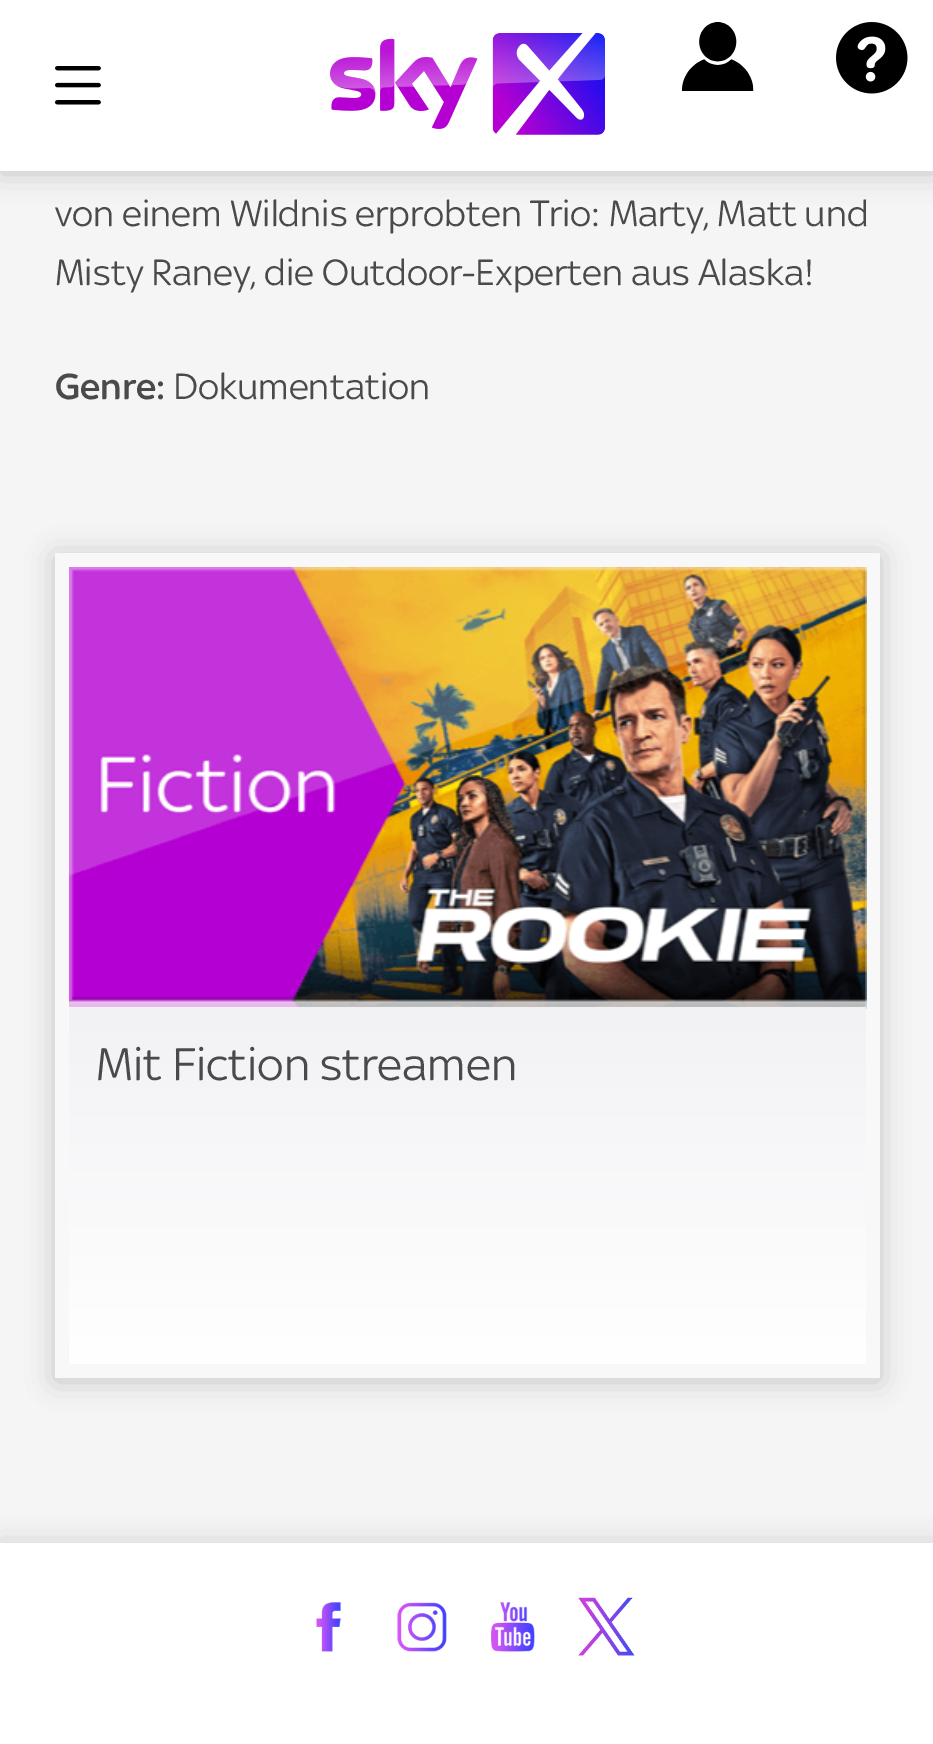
%!PS
<< /PageSize [933 1744] /PageUsesTransparency true >> setpagedevice
/mt/moveto load def
/li/lineto load def
/cp/closepath load def
/gs/gsave load def
/gr/grestore load def
/co { dup -16 bitshift 255 div exch dup -8 bitshift 255 and 255 div exch 255 and 255 div setrgbcolor } def
/fn { [ exch dup neg 0 0 3 -1 roll 0 0 ] selectfont } def
/tx { co fn moveto show } def
/bx { co rectfill } def
/al { dup .setfillconstantalpha .setstrokeconstantalpha } def
/rr { 5 dict begin { /r /h /w /y /x } { exch def } forall
  x r add y moveto x w add y 2 copy h add r arct x w add y h add x 1 index r arct
  x y h add x y r arct x y 2 copy exch w add exch r arct closepath end } def
/sh { 12 dict begin { /a /b /q /h /w /y /x } { exch def } forall gsave /was 0 def
  9 -2 -9 { dup b mul 4 div /e exch def 1 sub .425 mul 2.718 exch exp 1 add a .99 .min exch div /now exch def
    1 1 now sub 1 was sub div sub al /was now def
    w h .min e 2 mul add 0 gt { x e sub y e sub w e 2 mul add h e 2 mul add
      q e add b .6 mul add w h .min 2 div e add .min 0 .max rr fill } if } for grestore end } def
/im { 5 dict begin { /h /w /y /x /name } { exch def } forall
  gsave x y translate w h scale
  w h 8 [w 0 0 h 0 0] name (r) file false 3 colorimage grestore end } def
0 .pushpdf14devicefilter
0 1744 translate 1 -1 scale
4 setmiterlimit
0 0 933 1744 16#F5F5F5 bx
16#000000 co
0 3 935 170 0 14 .2 sh
0 0 933 171 16#FFFFFF bx
(media/1.raw) 330 33 275 102 im
(media/2.raw) 682 22 72 69 im
(media/3.raw) 836 22 72 72 im
(media/4.raw) 55 66 46 39 im
gs
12 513 mt 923 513 li 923 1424 li 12 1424 li cp 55 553 mt 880 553 li 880 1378 li 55 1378 li cp eoclip newpath
16#000000 co
55 556 825 825 0 14 .2 sh
gr
0.3 al
55 553 825 825 16#FFFFFF bx
1 al
(media/5.raw) 69 567 798 442 im
gs 69 1007 mt 866 1007 li 866 1364 li 69 1364 li cp clip newpath
<< /ShadingType 2 /ColorSpace /DeviceRGB /Coords [468 1007 468 1364] /Extend [true true] /Function << /FunctionType 2 /Domain [0 1] /C0 [.949 .949 .961] /C1 [1 1 1] /N 1 >> >> shfill gr
16#000000 co
0 1546 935 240 0 14 .2 sh
0 1543 933 201 16#FFFFFF bx
(media/6.raw) 316 1602 25 50 im
(media/7.raw) 397 1602 50 50 im
(media/8.raw) 491 1602 44 50 im
(media/9.raw) 578 1597 57 59 im
(von einem Wildnis erprobten Trio: Marty, Matt und) 55 226 /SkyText-Regular 39.1 16#4A4A4A tx
(Misty Raney, die Outdoor-Experten aus Alaska!) 55 285 /SkyText-Regular 39.1 16#4A4A4A tx
(Genre:) 55 399 /SkyText-Medium 39.1 16#4A4A4A tx
(Dokumentation) 173 399 /SkyText-Regular 39.1 16#4A4A4A tx
(Mit Fiction streamen) 96 1080 /SkyText-Regular 49 16#4A4A4A tx
.poppdf14devicefilter showpage
